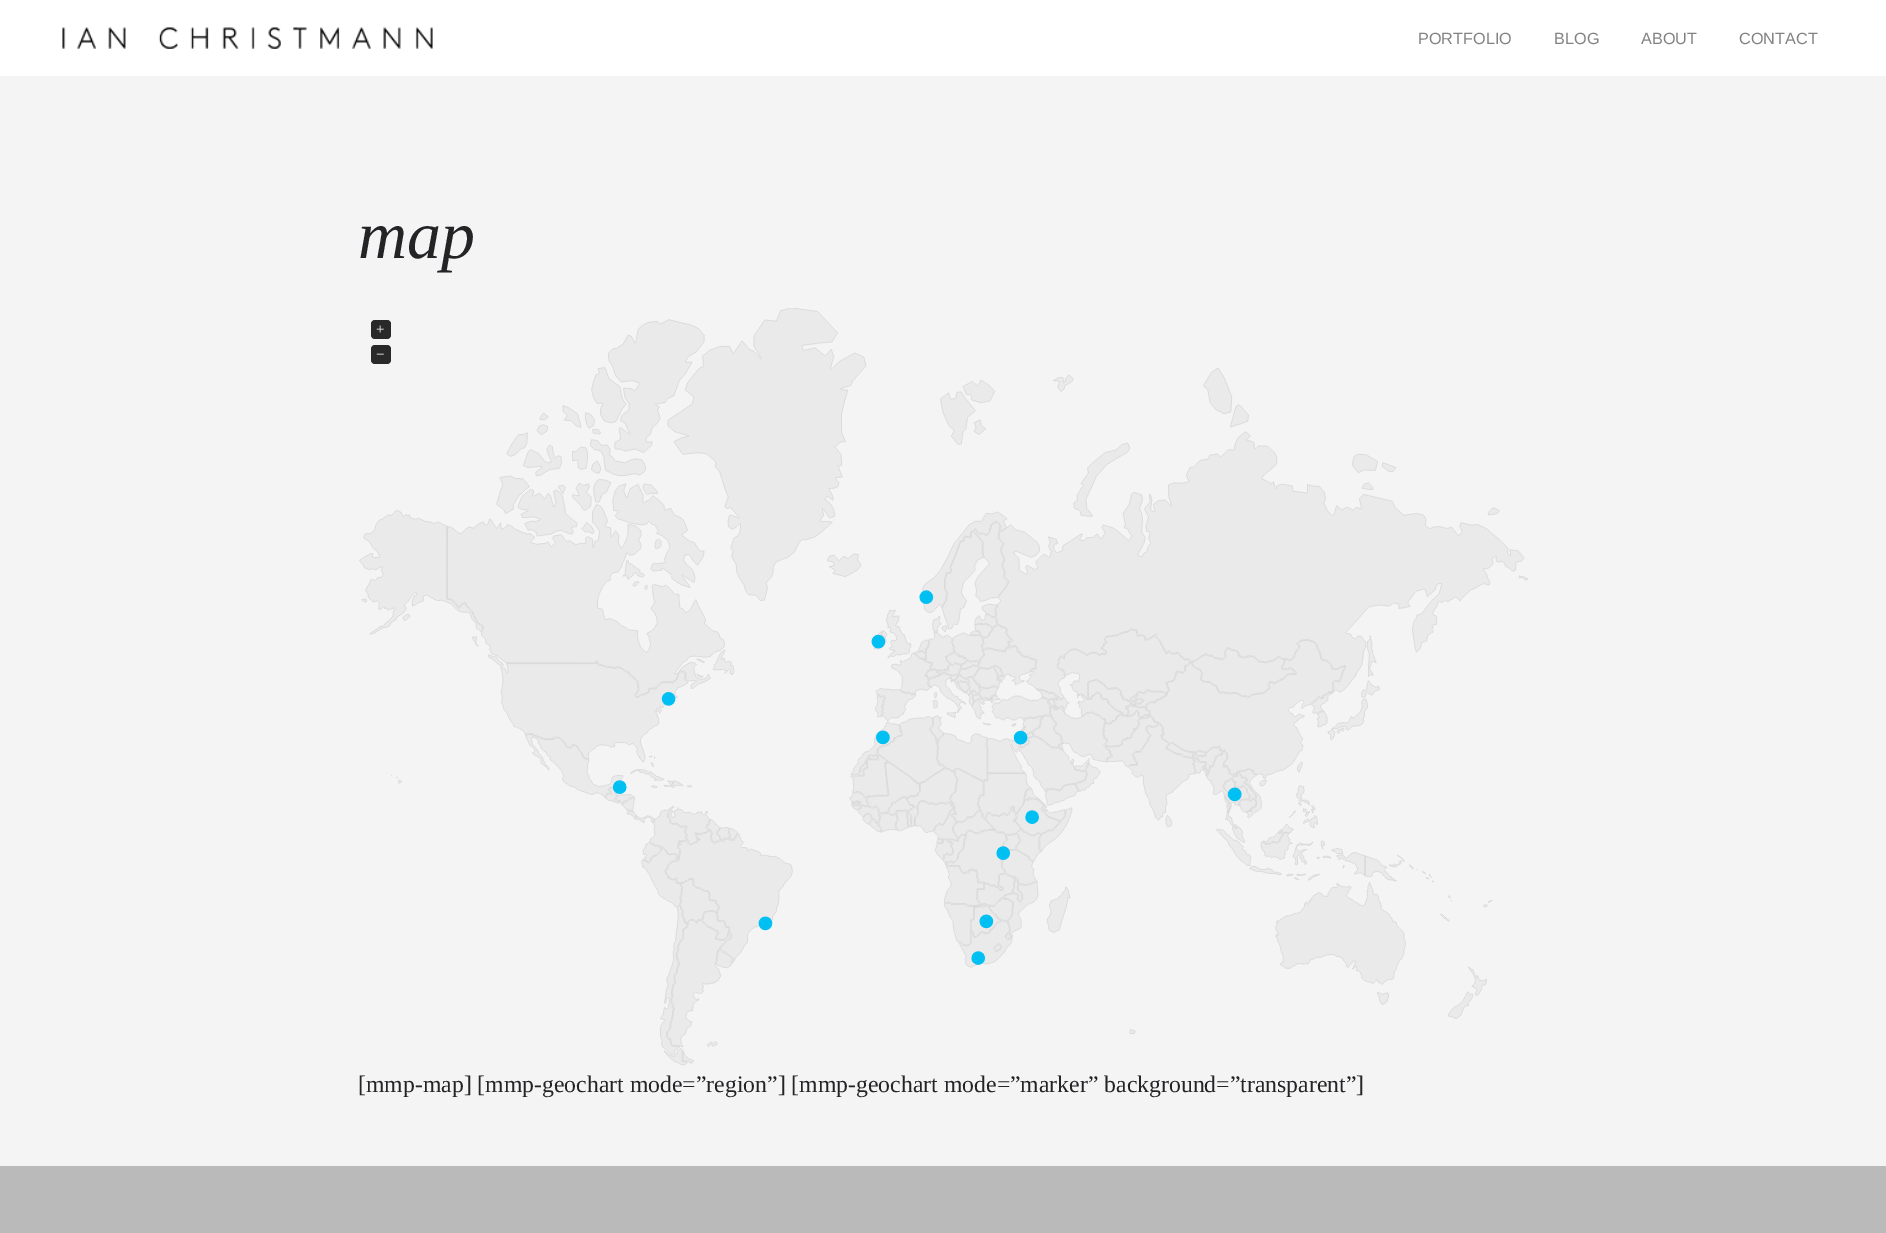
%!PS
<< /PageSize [1886 1233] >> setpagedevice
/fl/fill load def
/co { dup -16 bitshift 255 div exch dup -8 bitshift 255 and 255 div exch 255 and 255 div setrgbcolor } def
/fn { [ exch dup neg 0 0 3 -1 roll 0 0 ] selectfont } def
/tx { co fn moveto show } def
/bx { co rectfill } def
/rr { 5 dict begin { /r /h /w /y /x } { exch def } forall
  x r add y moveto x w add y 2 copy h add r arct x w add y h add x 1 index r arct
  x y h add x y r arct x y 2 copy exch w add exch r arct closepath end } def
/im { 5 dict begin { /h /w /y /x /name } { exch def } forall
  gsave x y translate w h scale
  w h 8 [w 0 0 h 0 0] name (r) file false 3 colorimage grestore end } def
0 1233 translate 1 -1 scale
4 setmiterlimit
0 0 1886 1233 16#F4F4F4 bx
0 0 1886 76 16#FFFFFF bx
(media/1.raw) 62 27 371 22 im
(media/2.raw) 359 308 1170 758 im
16#292929 co
371 320 20 19 4 rr fl
371 345 20 19 4 rr fl
0 1166 1886 67 16#BABABA bx
(PORTFOLIO) 1418 44 /LiberationSans-Regular 16.25 16#828282 tx
(BLOG) 1554 44 /LiberationSans-Regular 16.25 16#828282 tx
(ABOUT) 1641 44 /LiberationSans-Regular 16.25 16#828282 tx
(CONTACT) 1739 44 /LiberationSans-Regular 16.25 16#828282 tx
(map) 358 258 /LiberationSerif-Italic 68 16#242427 tx
(+) 376 334 /LiberationSerif-Regular 15 16#FFFFFF tx
(−) 376 359 /LiberationSerif-Regular 15 16#FFFFFF tx
([mmp-map] [mmp-geochart mode=”region”] [mmp-geochart mode=”marker” background=”transparent”]) 358 1092 /LiberationSerif-Regular 23.75 16#242427 tx
showpage
